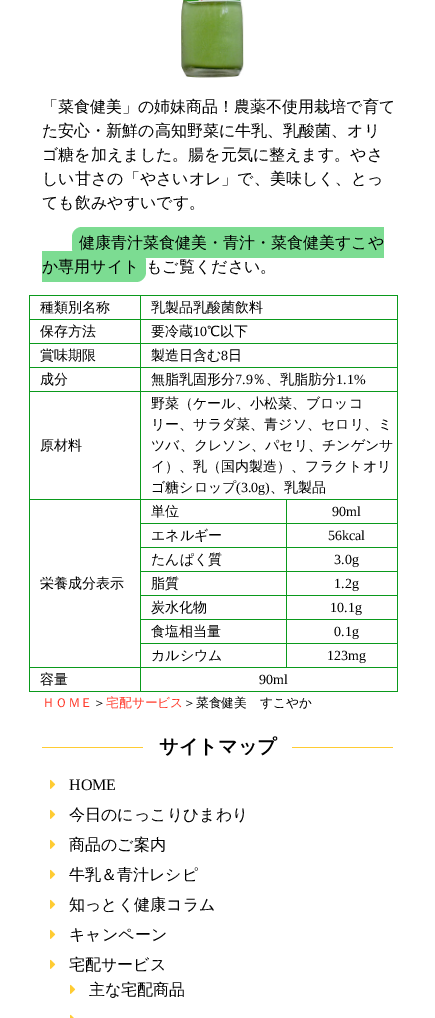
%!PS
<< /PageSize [435 1018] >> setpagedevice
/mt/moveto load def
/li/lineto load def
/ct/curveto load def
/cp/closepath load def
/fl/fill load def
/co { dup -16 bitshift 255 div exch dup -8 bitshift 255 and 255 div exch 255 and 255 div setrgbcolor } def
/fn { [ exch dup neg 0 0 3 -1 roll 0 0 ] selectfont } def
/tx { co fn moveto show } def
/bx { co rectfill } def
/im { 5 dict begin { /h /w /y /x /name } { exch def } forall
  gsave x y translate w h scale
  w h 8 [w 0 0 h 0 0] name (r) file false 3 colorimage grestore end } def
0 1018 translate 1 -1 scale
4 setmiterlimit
0 0 435 1018 16#FFFFFF bx
(media/1.raw) 181 0 63 78 im
16#7CDC92 co
82 227 mt 384 227 li 384 258 li 82 258 li 76.5 258 72 253.5 72 248 ct 72 237 li 72 231.5 76.5 227 82 227 ct cp fl
42 251 mt 136 251 li 141.5 251 146 255.5 146 261 ct 146 272 li 146 277.5 141.5 282 136 282 ct 42 282 li cp fl
29 295 369 1 16#0A9A1C bx
397 295 1 397 16#0A9A1C bx
29 691 369 1 16#0A9A1C bx
29 295 1 397 16#0A9A1C bx
140 319 258 1 16#0A9A1C bx
140 343 258 1 16#0A9A1C bx
140 367 258 1 16#0A9A1C bx
140 391 258 1 16#0A9A1C bx
286 499 112 1 16#0A9A1C bx
286 523 112 1 16#0A9A1C bx
286 547 112 1 16#0A9A1C bx
286 571 112 1 16#0A9A1C bx
286 595 112 1 16#0A9A1C bx
286 619 112 1 16#0A9A1C bx
286 643 112 1 16#0A9A1C bx
140 667 258 1 16#0A9A1C bx
286 643 1 25 16#0A9A1C bx
140 643 147 1 16#0A9A1C bx
286 619 1 25 16#0A9A1C bx
140 619 147 1 16#0A9A1C bx
286 595 1 25 16#0A9A1C bx
140 595 147 1 16#0A9A1C bx
286 571 1 25 16#0A9A1C bx
140 571 147 1 16#0A9A1C bx
286 547 1 25 16#0A9A1C bx
140 547 147 1 16#0A9A1C bx
286 523 1 25 16#0A9A1C bx
140 523 147 1 16#0A9A1C bx
286 499 1 25 16#0A9A1C bx
140 499 147 1 16#0A9A1C bx
140 667 1 25 16#0A9A1C bx
29 667 112 1 16#0A9A1C bx
140 643 1 25 16#0A9A1C bx
140 619 1 25 16#0A9A1C bx
140 595 1 25 16#0A9A1C bx
140 571 1 25 16#0A9A1C bx
140 547 1 25 16#0A9A1C bx
140 523 1 25 16#0A9A1C bx
140 499 1 25 16#0A9A1C bx
29 499 112 1 16#0A9A1C bx
140 391 1 109 16#0A9A1C bx
29 391 112 1 16#0A9A1C bx
140 367 1 25 16#0A9A1C bx
29 367 112 1 16#0A9A1C bx
140 343 1 25 16#0A9A1C bx
29 343 112 1 16#0A9A1C bx
140 319 1 25 16#0A9A1C bx
29 319 112 1 16#0A9A1C bx
140 295 1 25 16#0A9A1C bx
42 747 101 1 16#FFCC33 bx
292 747 101 1 16#FFCC33 bx
(media/2.raw) 50 779 6 10 im
(media/2.raw) 50 809 6 10 im
(media/2.raw) 50 839 6 10 im
(media/2.raw) 50 869 6 10 im
(media/2.raw) 50 899 6 10 im
(media/2.raw) 50 929 6 10 im
(media/2.raw) 50 959 6 10 im
(media/2.raw) 70 984 6 10 im
(media/3.raw) 70 1014 4 4 im
(「菜食健美」の姉妹商品！農薬不使用栽培で育て) 42 112 /WenQuanYiZenHei-Medium 16 16#000000 tx
(た安心・新鮮の高知野菜に牛乳、乳酸菌、オリ) 42 136 /WenQuanYiZenHei-Medium 16 16#000000 tx
(ゴ糖を加えました。腸を元気に整えます。やさ) 42 160 /WenQuanYiZenHei-Medium 16 16#000000 tx
(しい甘さの「やさいオレ」で、美味しく、とっ) 42 184 /WenQuanYiZenHei-Medium 16 16#000000 tx
(ても飲みやすいです。) 42 208 /WenQuanYiZenHei-Medium 16 16#000000 tx
(健康青汁菜食健美・青汁・菜食健美すこや) 79 248 /WenQuanYiZenHei-Medium 16 16#000000 tx
(か専用サイト) 42 272 /WenQuanYiZenHei-Medium 16 16#000000 tx
(もご覧ください。) 146 272 /WenQuanYiZenHei-Medium 16 16#000000 tx
(種類別名称) 40 312 /WenQuanYiZenHei-Medium 14 16#000000 tx
(乳製品乳酸菌飲料) 151 312 /WenQuanYiZenHei-Medium 14 16#000000 tx
(保存方法) 40 336 /WenQuanYiZenHei-Medium 14 16#000000 tx
(要冷蔵) 151 336 /WenQuanYiZenHei-Medium 14 16#000000 tx
(10) 193 336 /LiberationSerif-Regular 14 16#000000 tx
(℃以下) 207 336 /WenQuanYiZenHei-Medium 14 16#000000 tx
(賞味期限) 40 360 /WenQuanYiZenHei-Medium 14 16#000000 tx
(製造日含む) 151 360 /WenQuanYiZenHei-Medium 14 16#000000 tx
(8) 221 360 /LiberationSerif-Regular 14 16#000000 tx
(日) 228 360 /WenQuanYiZenHei-Medium 14 16#000000 tx
(成分) 40 384 /WenQuanYiZenHei-Medium 14 16#000000 tx
(無脂乳固形分) 151 384 /WenQuanYiZenHei-Medium 14 16#000000 tx
(7.9) 235 384 /LiberationSerif-Regular 14 16#000000 tx
(％、乳脂肪分) 252 384 /WenQuanYiZenHei-Medium 14 16#000000 tx
(1.1%) 336 384 /LiberationSerif-Regular 14 16#000000 tx
(原材料) 40 450 /WenQuanYiZenHei-Medium 14 16#000000 tx
(野菜（ケール、小松菜、ブロッコ) 151 408 /WenQuanYiZenHei-Medium 14 16#000000 tx
(リー、サラダ菜、青ジソ、セロリ、ミ) 151 429 /WenQuanYiZenHei-Medium 14 16#000000 tx
(ツバ、クレソン、パセリ、チンゲンサ) 151 450 /WenQuanYiZenHei-Medium 14 16#000000 tx
(イ）、乳（国内製造）、フラクトオリ) 151 471 /WenQuanYiZenHei-Medium 14 16#000000 tx
(ゴ糖シロップ) 151 492 /WenQuanYiZenHei-Medium 14 16#000000 tx
(\(3.0g\)) 236 492 /LiberationSerif-Regular 14 16#000000 tx
(、乳製品) 270 492 /WenQuanYiZenHei-Medium 14 16#000000 tx
(単位) 151 516 /WenQuanYiZenHei-Medium 14 16#000000 tx
(90ml) 332 516 /LiberationSerif-Regular 14 16#000000 tx
(栄養成分表示) 40 588 /WenQuanYiZenHei-Medium 14 16#000000 tx
(エネルギー) 151 540 /WenQuanYiZenHei-Medium 14 16#000000 tx
(56kcal) 328 540 /LiberationSerif-Regular 14 16#000000 tx
(たんぱく質) 151 564 /WenQuanYiZenHei-Medium 14 16#000000 tx
(3.0g) 334 564 /LiberationSerif-Regular 14 16#000000 tx
(脂質) 151 588 /WenQuanYiZenHei-Medium 14 16#000000 tx
(1.2g) 334 588 /LiberationSerif-Regular 14 16#000000 tx
(炭水化物) 151 612 /WenQuanYiZenHei-Medium 14 16#000000 tx
(10.1g) 330 612 /LiberationSerif-Regular 14 16#000000 tx
(食塩相当量) 151 636 /WenQuanYiZenHei-Medium 14 16#000000 tx
(0.1g) 334 636 /LiberationSerif-Regular 14 16#000000 tx
(カルシウム) 151 660 /WenQuanYiZenHei-Medium 14 16#000000 tx
(123mg) 327 660 /LiberationSerif-Regular 14 16#000000 tx
(容量) 40 684 /WenQuanYiZenHei-Medium 14 16#000000 tx
(90ml) 259 684 /LiberationSerif-Regular 14 16#000000 tx
(ＨＯＭＥ) 42 707 /WenQuanYiZenHei-Medium 12.75 16#FF3727 tx
(＞) 93 707 /WenQuanYiZenHei-Medium 12.75 16#000000 tx
(宅配サービス) 106 707 /WenQuanYiZenHei-Medium 12.75 16#FF3727 tx
(＞菜食健美　すこやか) 183 707 /WenQuanYiZenHei-Medium 12.75 16#000000 tx
(サイトマップ) 159 753 /WenQuanYiZenHei-Bold 19.25 16#000000 tx
(HOME) 69 790 /LiberationSerif-Regular 16 16#000000 tx
(今日のにっこりひまわり) 69 820 /WenQuanYiZenHei-Medium 16 16#000000 tx
(商品のご案内) 69 850 /WenQuanYiZenHei-Medium 16 16#000000 tx
(牛乳＆青汁レシピ) 69 880 /WenQuanYiZenHei-Medium 16 16#000000 tx
(知っとく健康コラム) 69 910 /WenQuanYiZenHei-Medium 16 16#000000 tx
(キャンペーン) 69 940 /WenQuanYiZenHei-Medium 16 16#000000 tx
(宅配サービス) 69 970 /WenQuanYiZenHei-Medium 16 16#000000 tx
(主な宅配商品) 89 995 /WenQuanYiZenHei-Medium 16 16#000000 tx
showpage
